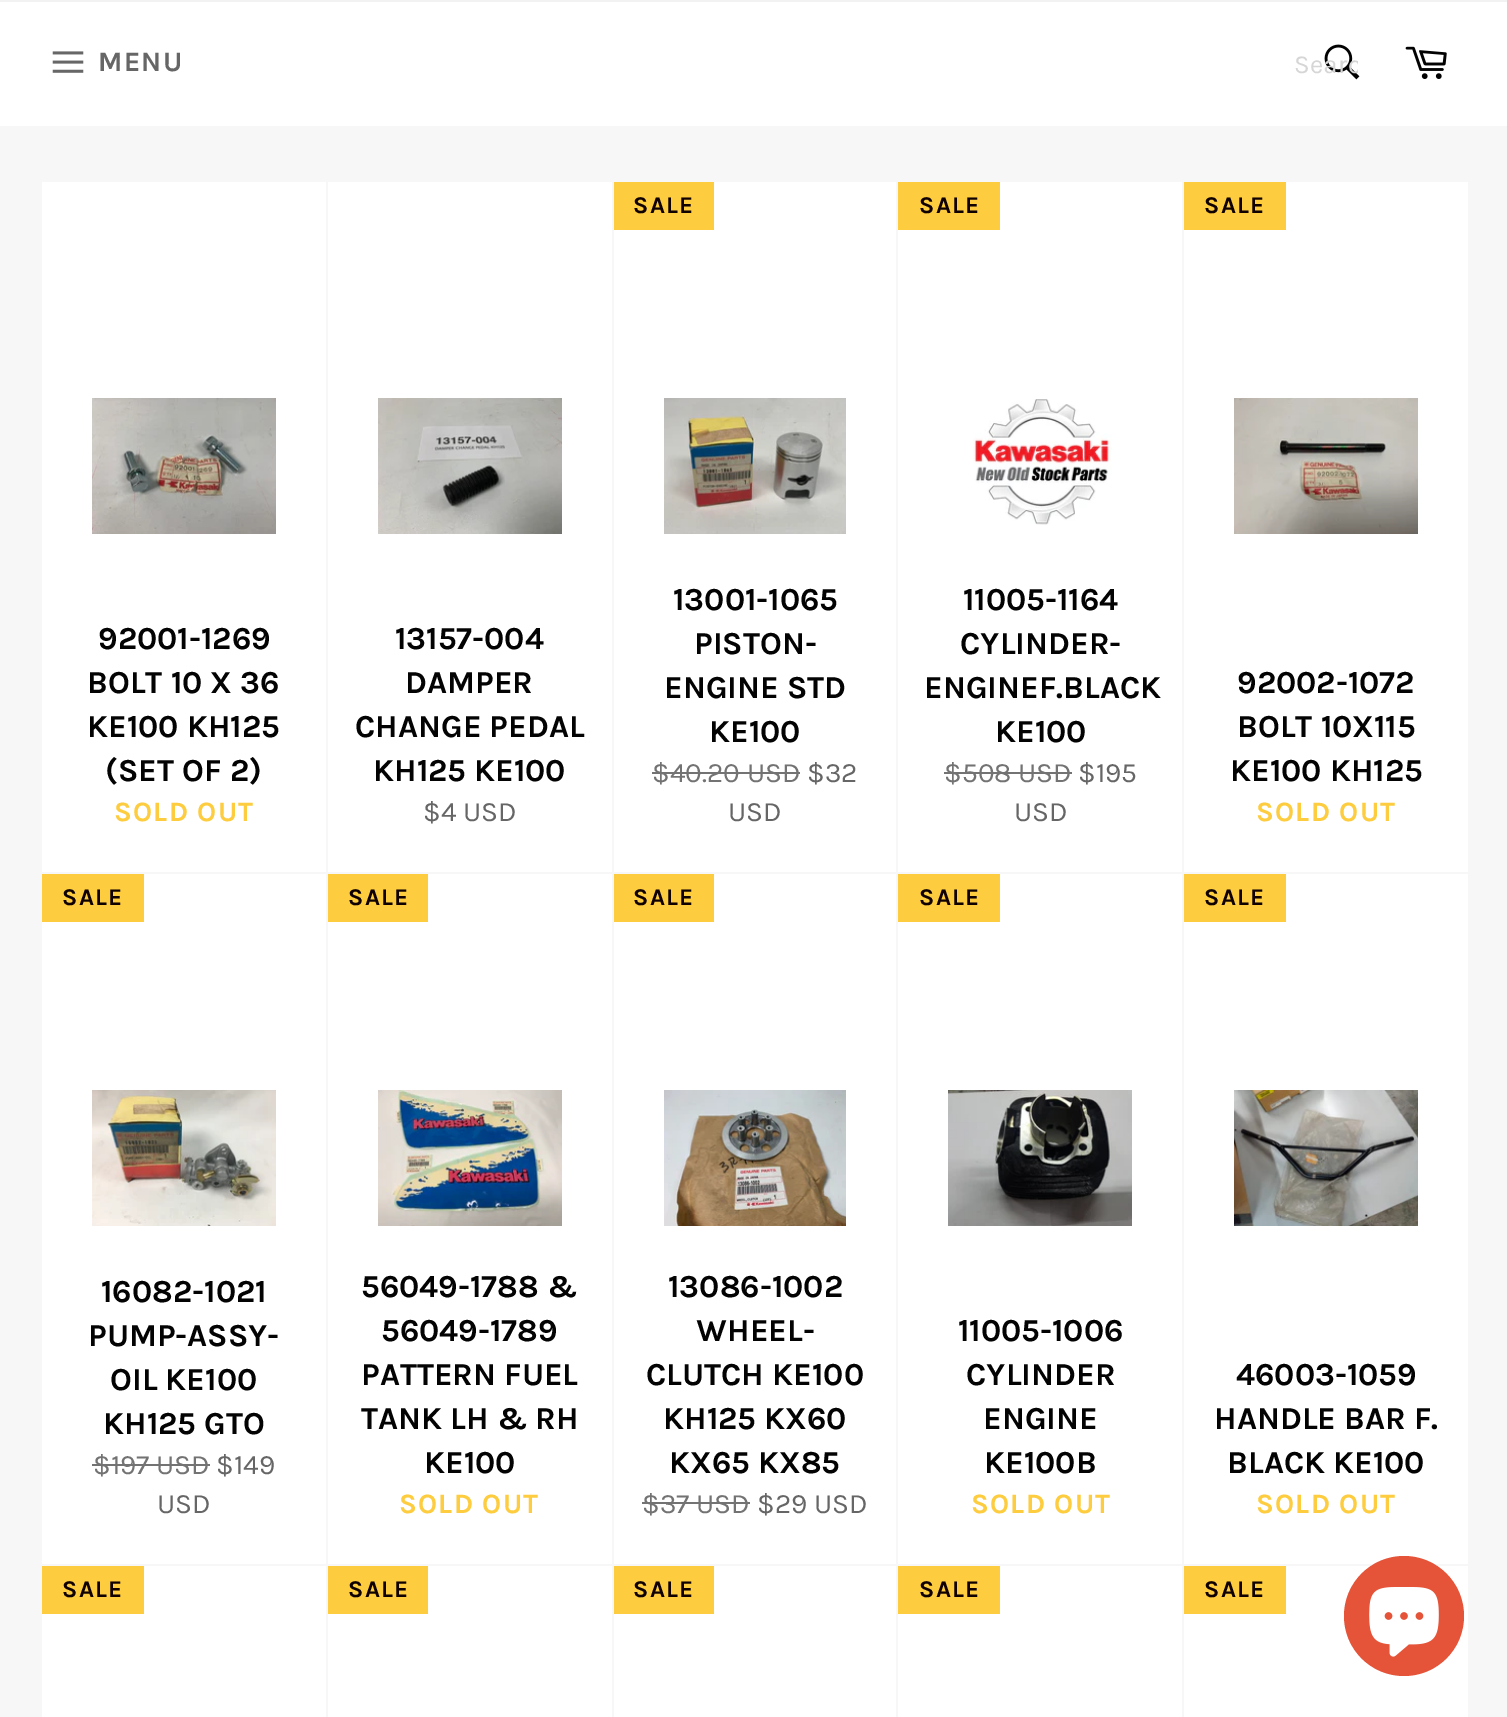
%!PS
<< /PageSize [1507 1717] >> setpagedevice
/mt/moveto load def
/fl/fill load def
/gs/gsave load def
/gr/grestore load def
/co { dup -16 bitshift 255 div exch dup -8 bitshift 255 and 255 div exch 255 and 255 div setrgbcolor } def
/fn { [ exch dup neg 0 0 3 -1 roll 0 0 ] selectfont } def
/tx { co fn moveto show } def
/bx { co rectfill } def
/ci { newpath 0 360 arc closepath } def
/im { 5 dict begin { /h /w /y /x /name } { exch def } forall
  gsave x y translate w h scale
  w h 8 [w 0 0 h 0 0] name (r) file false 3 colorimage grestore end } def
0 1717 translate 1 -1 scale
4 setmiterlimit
0 0 1507 1717 16#F7F7F7 bx
0 2 1507 124 16#FFFFFF bx
0 0 1507 2 16#F2F2F2 bx
(media/1.raw) 52 51 32 22 im
(media/2.raw) 1324 44 36 36 im
(media/3.raw) 1405 46 42 33 im
42 182 284 690 16#FFFFFF bx
(media/4.raw) 92 398 184 136 im
328 182 284 690 16#FFFFFF bx
(media/5.raw) 378 398 184 136 im
614 182 282 690 16#FFFFFF bx
614 182 100 48 16#FDCC3F bx
(media/6.raw) 664 398 182 136 im
652 772 148 2 16#737373 bx
898 182 284 690 16#FFFFFF bx
898 182 102 48 16#FDCC3F bx
(media/7.raw) 973 399 139 126 im
944 772 128 2 16#737373 bx
1184 182 284 690 16#FFFFFF bx
1184 182 102 48 16#FDCC3F bx
(media/8.raw) 1234 398 184 136 im
42 874 284 690 16#FFFFFF bx
42 874 102 48 16#FDCC3F bx
(media/9.raw) 92 1090 184 136 im
92 1464 118 2 16#737373 bx
328 874 284 690 16#FFFFFF bx
328 874 100 48 16#FDCC3F bx
(media/10.raw) 378 1090 184 136 im
614 874 282 690 16#FFFFFF bx
614 874 100 48 16#FDCC3F bx
(media/11.raw) 664 1090 182 136 im
642 1502 108 2 16#737373 bx
898 874 284 690 16#FFFFFF bx
898 874 102 48 16#FDCC3F bx
(media/12.raw) 948 1090 184 136 im
1184 874 284 690 16#FFFFFF bx
1184 874 102 48 16#FDCC3F bx
(media/13.raw) 1234 1090 184 136 im
42 1566 284 151 16#FFFFFF bx
42 1566 102 48 16#FDCC3F bx
328 1566 284 151 16#FFFFFF bx
328 1566 100 48 16#FDCC3F bx
614 1566 282 151 16#FFFFFF bx
614 1566 100 48 16#FDCC3F bx
898 1566 284 151 16#FFFFFF bx
898 1566 102 48 16#FDCC3F bx
1184 1566 284 151 16#FFFFFF bx
1184 1566 102 48 16#FDCC3F bx
16#E55338 co
1404 1616 60 ci fl
(media/14.raw) 1369 1587 70 70 im
/Karla-Bold 28 fn
16#666666 co
98 71 mt 1.25 0 (MENU) ashow
gs
1294 50 64 30 rectclip
(Searc) 1294 73 /Karla-Regular 26 16#D6D6D6 tx
gr
(92001-1269) 98 649 /Karla-Bold 32 16#030303 tx
(BOLT 10 X 36) 87 693 /Karla-Bold 32 16#030303 tx
(KE100 KH125) 87 737 /Karla-Bold 32 16#030303 tx
(\(SET OF 2\)) 105 781 /Karla-Bold 32 16#030303 tx
/Karla-Bold 28 fn
16#FDCC3F co
114 821 mt 1.25 0 (SOLD OUT) ashow
(13157-004) 395 649 /Karla-Bold 32 16#030303 tx
(DAMPER) 405 693 /Karla-Bold 32 16#030303 tx
(CHANGE PEDAL) 355 737 /Karla-Bold 32 16#030303 tx
(KH125 KE100) 373 781 /Karla-Bold 32 16#030303 tx
($4 USD) 423 821 /Karla-Regular 28 16#666666 tx
/Karla-Bold 24 fn
16#110202 co
633 213 mt 1.25 0 (SALE) ashow
(13001-1065) 673 610 /Karla-Bold 32 16#030303 tx
(PISTON-) 694 654 /Karla-Bold 32 16#030303 tx
(ENGINE STD) 664 698 /Karla-Bold 32 16#030303 tx
(KE100) 709 742 /Karla-Bold 32 16#030303 tx
($40.20 USD) 652 782 /Karla-Regular 28 16#737373 tx
($32) 807 782 /Karla-Regular 28 16#666666 tx
(USD) 728 821 /Karla-Regular 28 16#666666 tx
/Karla-Bold 24 fn
16#110202 co
919 213 mt 1.25 0 (SALE) ashow
(11005-1164) 963 610 /Karla-Bold 32 16#030303 tx
(CYLINDER-) 960 654 /Karla-Bold 32 16#030303 tx
(ENGINEF.BLACK) 924 698 /Karla-Bold 32 16#030303 tx
(KE100) 995 742 /Karla-Bold 32 16#030303 tx
($508 USD) 944 782 /Karla-Regular 28 16#737373 tx
($195) 1078 782 /Karla-Regular 28 16#666666 tx
(USD) 1014 821 /Karla-Regular 28 16#666666 tx
/Karla-Bold 24 fn
16#110202 co
1204 213 mt 1.25 0 (SALE) ashow
(92002-1072) 1237 693 /Karla-Bold 32 16#030303 tx
(BOLT 10X115) 1237 737 /Karla-Bold 32 16#030303 tx
(KE100 KH125) 1230 781 /Karla-Bold 32 16#030303 tx
/Karla-Bold 28 fn
16#FDCC3F co
1256 821 mt 1.25 0 (SOLD OUT) ashow
/Karla-Bold 24 fn
16#110202 co
62 905 mt 1.25 0 (SALE) ashow
(16082-1021) 101 1302 /Karla-Bold 32 16#030303 tx
(PUMP-ASSY-) 88 1346 /Karla-Bold 32 16#030303 tx
(OIL KE100) 110 1390 /Karla-Bold 32 16#030303 tx
(KH125 GTO) 103 1434 /Karla-Bold 32 16#030303 tx
($197 USD) 93 1474 /Karla-Regular 28 16#737373 tx
($149) 216 1474 /Karla-Regular 28 16#666666 tx
(USD) 157 1513 /Karla-Regular 28 16#666666 tx
/Karla-Bold 24 fn
16#110202 co
348 905 mt 1.25 0 (SALE) ashow
(56049-1788 &) 361 1297 /Karla-Bold 32 16#030303 tx
(56049-1789) 381 1341 /Karla-Bold 32 16#030303 tx
(PATTERN FUEL) 361 1385 /Karla-Bold 32 16#030303 tx
(TANK LH & RH) 361 1429 /Karla-Bold 32 16#030303 tx
(KE100) 424 1473 /Karla-Bold 32 16#030303 tx
/Karla-Bold 28 fn
16#FDCC3F co
399 1513 mt 1.25 0 (SOLD OUT) ashow
/Karla-Bold 24 fn
16#110202 co
633 905 mt 1.25 0 (SALE) ashow
(13086-1002) 668 1297 /Karla-Bold 32 16#030303 tx
(WHEEL-) 696 1341 /Karla-Bold 32 16#030303 tx
(CLUTCH KE100) 646 1385 /Karla-Bold 32 16#030303 tx
(KH125 KX60) 663 1429 /Karla-Bold 32 16#030303 tx
(KX65 KX85) 669 1473 /Karla-Bold 32 16#030303 tx
($37 USD) 642 1513 /Karla-Regular 28 16#737373 tx
($29 USD) 757 1513 /Karla-Regular 28 16#666666 tx
/Karla-Bold 24 fn
16#110202 co
919 905 mt 1.25 0 (SALE) ashow
(11005-1006) 958 1341 /Karla-Bold 32 16#030303 tx
(CYLINDER) 966 1385 /Karla-Bold 32 16#030303 tx
(ENGINE) 983 1429 /Karla-Bold 32 16#030303 tx
(KE100B) 984 1473 /Karla-Bold 32 16#030303 tx
/Karla-Bold 28 fn
16#FDCC3F co
971 1513 mt 1.25 0 (SOLD OUT) ashow
/Karla-Bold 24 fn
16#110202 co
1204 905 mt 1.25 0 (SALE) ashow
(46003-1059) 1236 1385 /Karla-Bold 32 16#030303 tx
(HANDLE BAR F.) 1214 1429 /Karla-Bold 32 16#030303 tx
(BLACK KE100) 1227 1473 /Karla-Bold 32 16#030303 tx
/Karla-Bold 28 fn
16#FDCC3F co
1256 1513 mt 1.25 0 (SOLD OUT) ashow
/Karla-Bold 24 fn
16#110202 co
62 1597 mt 1.25 0 (SALE) ashow
348 1597 mt 1.25 0 (SALE) ashow
633 1597 mt 1.25 0 (SALE) ashow
919 1597 mt 1.25 0 (SALE) ashow
1204 1597 mt 1.25 0 (SALE) ashow
showpage
